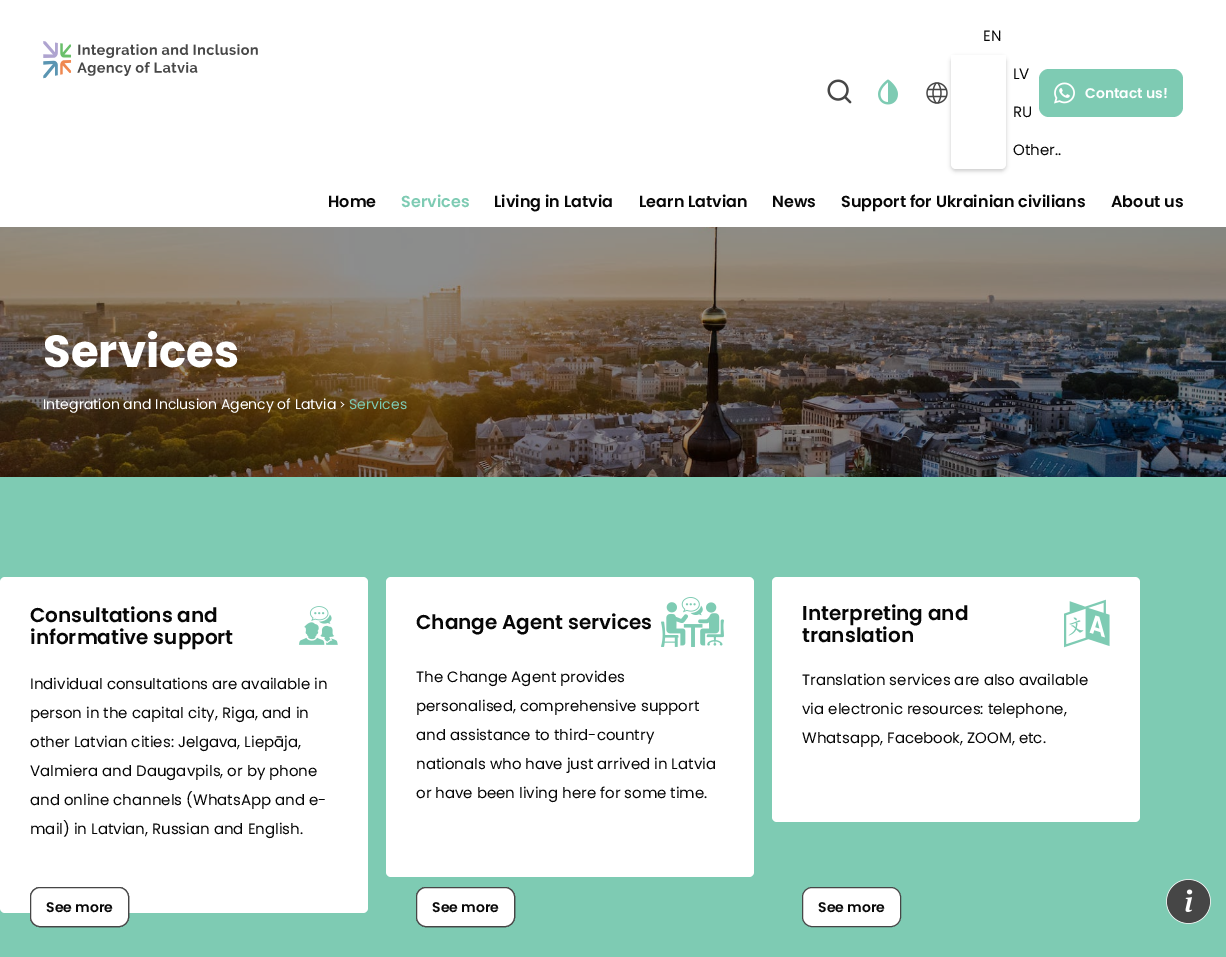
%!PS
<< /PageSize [1226 957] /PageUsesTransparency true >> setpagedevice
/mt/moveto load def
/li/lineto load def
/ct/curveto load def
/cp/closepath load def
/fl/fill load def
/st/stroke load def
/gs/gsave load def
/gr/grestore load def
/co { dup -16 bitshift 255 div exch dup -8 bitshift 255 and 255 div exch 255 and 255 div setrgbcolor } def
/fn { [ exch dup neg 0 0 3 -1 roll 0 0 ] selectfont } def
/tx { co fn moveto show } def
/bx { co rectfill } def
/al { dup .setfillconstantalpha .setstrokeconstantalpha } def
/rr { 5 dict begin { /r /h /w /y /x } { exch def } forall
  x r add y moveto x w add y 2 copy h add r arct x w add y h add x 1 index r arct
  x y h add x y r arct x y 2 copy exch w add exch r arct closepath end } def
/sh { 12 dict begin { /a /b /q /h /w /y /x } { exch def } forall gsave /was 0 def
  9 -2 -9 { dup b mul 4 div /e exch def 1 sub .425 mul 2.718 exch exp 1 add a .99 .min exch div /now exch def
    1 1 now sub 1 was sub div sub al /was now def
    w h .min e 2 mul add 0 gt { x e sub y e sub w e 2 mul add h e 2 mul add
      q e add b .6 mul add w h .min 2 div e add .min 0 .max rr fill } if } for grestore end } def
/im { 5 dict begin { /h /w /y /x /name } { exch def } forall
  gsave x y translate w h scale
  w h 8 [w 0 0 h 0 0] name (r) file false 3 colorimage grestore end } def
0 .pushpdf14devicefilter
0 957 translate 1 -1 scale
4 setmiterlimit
0 0 1226 957 16#FFFFFF bx
(media/1.raw) 43 41 215 38 im
(media/2.raw) 827 79 25 25 im
(media/3.raw) 878 79 20 26 im
16#000000 co
951 57 55 114 5 2 .2 sh
(media/4.raw) 926 82 22 22 im
16#FFFFFF co
951 55 mt 1006 55 li 1006 164 li 1006 167 1004 169 1001 169 ct 956 169 li 953 169 951 167 951 164 ct cp fl
16#7ECBB3 co
1039 69 144 48 10 rr fl
(media/5.raw) 1054 82 21 22 im
(media/6.raw) 0 227 1226 250 im
0 477 1226 480 16#7ECBB3 bx
16#FFFFFF co
0 577 368 336 5 rr fl
(media/7.raw) 299 606 39 39 im
16#464646 co
30.5 887.5 98 39 9.5 rr st
16#FFFFFF co
386 577 368 300 5 rr fl
(media/8.raw) 661 597 63 50 im
16#464646 co
416.5 887.5 98 39 9.5 rr st
16#FFFFFF co
772 577 368 245 5 rr fl
(media/9.raw) 1064 599 46 49 im
802.5 887.5 98 39 9.5 rr gs fl gr
16#464646 co
st
16#FFFFFF co
30.5 887.5 98 39 9.5 rr gs fl gr
16#464646 co
st
16#FFFFFF co
416.5 887.5 98 39 9.5 rr gs fl gr
16#464646 co
st
(media/10.raw) 1166 879 45 45 im
(EN) 983 41 /Poppins-Regular 15 16#070707 tx
(LV) 1013 79 /Poppins-Regular 15 16#070707 tx
(RU) 1013 117 /Poppins-Regular 15 16#070707 tx
(Other..) 1013 155 /Poppins-Regular 15 16#070707 tx
(Contact us!) 1085 98 /Poppins-SemiBold 14 16#FFFFFF tx
(Home) 328 207 /Poppins-SemiBold 16 16#070707 tx
(Services) 401 207 /Poppins-SemiBold 16 16#7ECBB3 tx
(Living in Latvia) 494 207 /Poppins-SemiBold 16 16#070707 tx
(Learn Latvian) 639 207 /Poppins-SemiBold 16 16#070707 tx
(News) 772 207 /Poppins-SemiBold 16 16#070707 tx
(Support for Ukrainian civilians) 841 207 /Poppins-SemiBold 16 16#070707 tx
(About us) 1111 207 /Poppins-SemiBold 16 16#070707 tx
(Services) 43 367 /Poppins-Bold 45 16#FFFFFF tx
(Integration and Inclusion Agency of Latvia) 43 409 /Poppins-Regular 14 16#FFFFFF tx
(>) 339 409 /Poppins-Regular 12 16#FFFFFF tx
(Services) 349 409 /Poppins-Regular 14 16#7ECBB3 tx
(Consultations and) 30 622 /Poppins-SemiBold 20 16#070707 tx
(informative support) 30 644 /Poppins-SemiBold 20 16#070707 tx
(Individual consultations are available in) 30 689 /Poppins-Regular 15 16#070707 tx
(person in the capital city, Riga, and in) 30 718 /Poppins-Regular 15 16#070707 tx
(other Latvian cities: Jelgava, Liepāja,) 30 747 /Poppins-Regular 15 16#070707 tx
(Valmiera and Daugavpils, or by phone) 30 776 /Poppins-Regular 15 16#070707 tx
(and online channels \(WhatsApp and e-) 30 805 /Poppins-Regular 15 16#070707 tx
(mail\) in Latvian, Russian and English.) 30 834 /Poppins-Regular 15 16#070707 tx
(Change Agent services) 416 629 /Poppins-SemiBold 20 16#070707 tx
(The Change Agent provides) 416 682 /Poppins-Regular 15 16#070707 tx
(personalised, comprehensive support) 416 711 /Poppins-Regular 15 16#070707 tx
(and assistance to third-country) 416 740 /Poppins-Regular 15 16#070707 tx
(nationals who have just arrived in Latvia) 416 769 /Poppins-Regular 15 16#070707 tx
(or have been living here for some time.) 416 798 /Poppins-Regular 15 16#070707 tx
(Interpreting and) 802 620 /Poppins-SemiBold 20 16#070707 tx
(translation) 802 642 /Poppins-SemiBold 20 16#070707 tx
(Translation services are also available) 802 685 /Poppins-Regular 15 16#070707 tx
(via electronic resources: telephone,) 802 714 /Poppins-Regular 15 16#070707 tx
(Whatsapp, Facebook, ZOOM, etc.) 802 743 /Poppins-Regular 15 16#070707 tx
(See more) 818 912 /Poppins-SemiBold 14 16#070707 tx
(See more) 46 912 /Poppins-SemiBold 14 16#070707 tx
(See more) 432 912 /Poppins-SemiBold 14 16#070707 tx
.poppdf14devicefilter showpage
